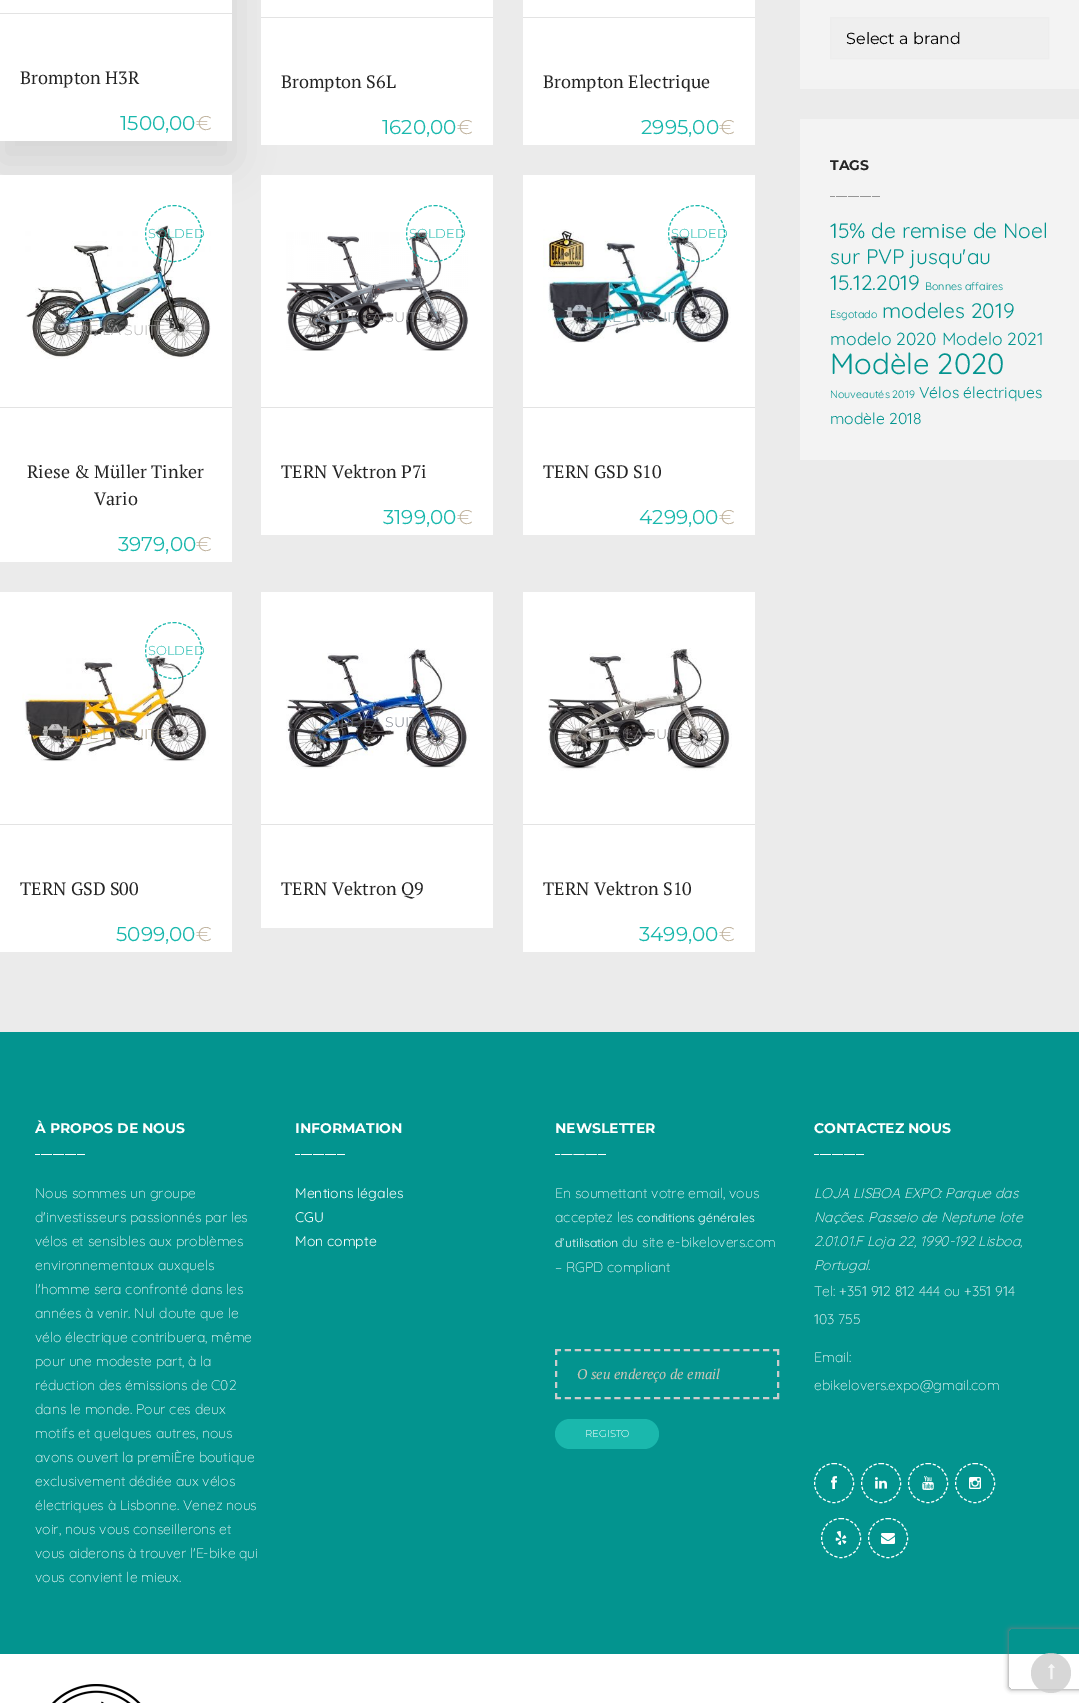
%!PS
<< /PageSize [1079 1703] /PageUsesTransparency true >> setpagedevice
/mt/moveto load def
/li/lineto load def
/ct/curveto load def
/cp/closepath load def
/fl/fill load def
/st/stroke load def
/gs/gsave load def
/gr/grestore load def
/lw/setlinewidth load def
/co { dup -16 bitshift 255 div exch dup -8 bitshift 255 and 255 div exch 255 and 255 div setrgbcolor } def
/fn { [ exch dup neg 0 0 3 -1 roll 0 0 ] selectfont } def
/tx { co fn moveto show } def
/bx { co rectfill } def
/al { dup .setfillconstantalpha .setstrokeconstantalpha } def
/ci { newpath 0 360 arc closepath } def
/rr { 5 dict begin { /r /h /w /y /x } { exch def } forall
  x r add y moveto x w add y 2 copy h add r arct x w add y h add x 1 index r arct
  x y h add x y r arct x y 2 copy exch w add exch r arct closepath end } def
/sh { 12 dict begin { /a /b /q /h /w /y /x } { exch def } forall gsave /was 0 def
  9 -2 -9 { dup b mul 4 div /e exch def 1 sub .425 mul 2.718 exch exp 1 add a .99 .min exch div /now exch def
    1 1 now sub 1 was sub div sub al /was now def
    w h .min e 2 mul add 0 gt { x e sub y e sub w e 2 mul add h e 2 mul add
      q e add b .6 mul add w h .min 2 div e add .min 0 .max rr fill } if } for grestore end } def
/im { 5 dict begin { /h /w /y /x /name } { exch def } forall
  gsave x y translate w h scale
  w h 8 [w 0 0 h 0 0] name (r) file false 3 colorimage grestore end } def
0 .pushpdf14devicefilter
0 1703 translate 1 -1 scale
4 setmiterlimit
0 0 1079 1703 16#EBEBEB bx
16#000000 co
0 -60 232 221 0 20 .1 sh
0 0 232 141 16#FFFFFF bx
0 13 232 1 16#E3E3E3 bx
261 0 232 145 16#FFFFFF bx
261 17 232 1 16#E3E3E3 bx
523 0 232 145 16#FFFFFF bx
523 17 232 1 16#E3E3E3 bx
0 175 232 387 16#FFFFFF bx
(media/1.raw) 25 225 186 134 im
0 407 232 1 16#E3E3E3 bx
16#1AB8AD co
[3 2] 0 setdash
173.5 205.5 mt 189 205.5 201.5 218 201.5 233.5 ct 201.5 249 189 261.5 173.5 261.5 ct 158 261.5 145.5 249 145.5 233.5 ct 145.5 218 158 205.5 173.5 205.5 ct cp st
261 175 232 360 16#FFFFFF bx
261 407 232 1 16#E3E3E3 bx
(media/2.raw) 286 232 183 119 im
16#1AB8AD co
434.5 205.5 mt 450 205.5 462.5 218 462.5 233.5 ct 462.5 249 450 261.5 434.5 261.5 ct 419 261.5 406.5 249 406.5 233.5 ct 406.5 218 419 205.5 434.5 205.5 ct cp st
523 175 232 360 16#FFFFFF bx
(media/3.raw) 543 229 188 114 im
523 407 232 1 16#E3E3E3 bx
16#1AB8AD co
696.5 205.5 mt 712 205.5 724.5 218 724.5 233.5 ct 724.5 249 712 261.5 696.5 261.5 ct 681 261.5 668.5 249 668.5 233.5 ct 668.5 218 681 205.5 696.5 205.5 ct cp st
0 592 232 360 16#FFFFFF bx
0 824 232 1 16#E3E3E3 bx
(media/4.raw) 22 653 187 109 im
16#1AB8AD co
173.5 622.5 mt 189 622.5 201.5 635 201.5 650.5 ct 201.5 666 189 678.5 173.5 678.5 ct 158 678.5 145.5 666 145.5 650.5 ct 145.5 635 158 622.5 173.5 622.5 ct cp st
261 592 232 336 16#FFFFFF bx
(media/5.raw) 286 648 184 121 im
261 824 232 1 16#E3E3E3 bx
523 592 232 360 16#FFFFFF bx
(media/6.raw) 548 648 184 123 im
523 824 232 1 16#E3E3E3 bx
800 0 279 89 16#F3F3F3 bx
16#EFEFEF co
830.5 17.5 mt 1048.5 17.5 li 1048.5 58.5 li 830.5 58.5 li cp gs fl gr
16#EDEDED co
[] 0 setdash
st
800 119 279 341 16#F3F3F3 bx
(media/7.raw) 830 196 50 1 im
0 1032 1079 622 16#03948F bx
(media/8.raw) 35 1154 50 1 im
(media/8.raw) 295 1154 50 1 im
(media/9.raw) 555 1154 51 1 im
16#CCCCCC co
2 lw
[6 3.91] 0 setdash
555 1350 mt 779 1350 li st
[6 5] 0 setdash
778 1349 mt 778 1399 li st
[6 3.91] 0 setdash
555 1398 mt 779 1398 li st
[6 5] 0 setdash
556 1349 mt 556 1399 li st
16#1AB8AD co
555 1419 104 30 15 rr fl
(media/8.raw) 814 1154 50 1 im
16#FFFFFF co
1 lw
[3 2] 0 setdash
834 1463.5 mt 845 1463.5 853.5 1472 853.5 1483 ct 853.5 1494 845 1502.5 834 1502.5 ct 823 1502.5 814.5 1494 814.5 1483 ct 814.5 1472 823 1463.5 834 1463.5 ct cp st
(media/10.raw) 831 1476 6 13 im
881 1463.5 mt 892 1463.5 900.5 1472 900.5 1483 ct 900.5 1494 892 1502.5 881 1502.5 ct 870 1502.5 861.5 1494 861.5 1483 ct 861.5 1472 870 1463.5 881 1463.5 ct cp st
(media/11.raw) 875 1477 12 12 im
928 1463.5 mt 939 1463.5 947.5 1472 947.5 1483 ct 947.5 1494 939 1502.5 928 1502.5 ct 917 1502.5 908.5 1494 908.5 1483 ct 908.5 1472 917 1463.5 928 1463.5 ct cp st
(media/12.raw) 922 1476 12 14 im
975 1463.5 mt 986 1463.5 994.5 1472 994.5 1483 ct 994.5 1494 986 1502.5 975 1502.5 ct 964 1502.5 955.5 1494 955.5 1483 ct 955.5 1472 964 1463.5 975 1463.5 ct cp st
(media/13.raw) 969 1477 12 12 im
841 1518.5 mt 852 1518.5 860.5 1527 860.5 1538 ct 860.5 1549 852 1557.5 841 1557.5 ct 830 1557.5 821.5 1549 821.5 1538 ct 821.5 1527 830 1518.5 841 1518.5 ct cp st
(media/14.raw) 835 1531 12 14 im
888 1518.5 mt 899 1518.5 907.5 1527 907.5 1538 ct 907.5 1549 899 1557.5 888 1557.5 ct 877 1557.5 868.5 1549 868.5 1538 ct 868.5 1527 877 1518.5 888 1518.5 ct cp st
(media/15.raw) 881 1533 14 11 im
0 1654 1079 49 16#FFFFFF bx
(media/16.raw) 52 1684 89 19 im
gs
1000 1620 mt 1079 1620 li 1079 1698 li 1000 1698 li cp 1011 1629 mt 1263 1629 li 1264 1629 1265 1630 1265 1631 ct 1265 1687 li 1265 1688 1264 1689 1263 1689 ct 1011 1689 li 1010 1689 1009 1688 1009 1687 ct 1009 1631 li 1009 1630 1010 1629 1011 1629 ct cp eoclip newpath
16#808080 co
1009 1629 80 60 2 2.5 1 sh
gr
0.79 al
16#CCCCCC co
1051 1673 20 ci fl
1 al
(media/17.raw) 1048 1664 7 16 im
(Brompton H3R) 20 84 /PTSerif-Regular 18 16#252525 tx
(1500,00) 120 130 /Montserrat-Regular 20 16#1AB8AD tx
(€) 196 130 /Montserrat-Light 20 16#BDAF99 tx
(Brompton S6L) 281 88 /PTSerif-Regular 18 16#252525 tx
(1620,00) 382 134 /Montserrat-Regular 20 16#1AB8AD tx
(€) 457 134 /Montserrat-Light 20 16#BDAF99 tx
(Brompton Electrique) 543 88 /PTSerif-Regular 18 16#252525 tx
(2995,00) 641 134 /Montserrat-Regular 20 16#1AB8AD tx
(€) 719 134 /Montserrat-Light 20 16#BDAF99 tx
(SOLDED) 148 238 /Montserrat-Light 13 16#1AB8AD tx
(Riese & Müller Tinker) 27 478 /PTSerif-Regular 18 16#252525 tx
(Vario) 94 505 /PTSerif-Regular 18 16#252525 tx
(3979,00) 118 551 /Montserrat-Regular 20 16#1AB8AD tx
(€) 196 551 /Montserrat-Light 20 16#BDAF99 tx
(LIRE LA SUITE) 67 335 /Montserrat-Light 14 16#AFAEAE tx
(SOLDED) 409 238 /Montserrat-Light 13 16#1AB8AD tx
(TERN Vektron P7i) 281 478 /PTSerif-Regular 18 16#252525 tx
(3199,00) 383 524 /Montserrat-Regular 20 16#1AB8AD tx
(€) 457 524 /Montserrat-Light 20 16#BDAF99 tx
(LIRE LA SUITE) 328 322 /Montserrat-Light 14 16#979799 tx
(SOLDED) 671 238 /Montserrat-Light 13 16#1AB8AD tx
(TERN GSD S10) 543 478 /PTSerif-Regular 18 16#252525 tx
(4299,00) 639 524 /Montserrat-Regular 20 16#1AB8AD tx
(€) 719 524 /Montserrat-Light 20 16#BDAF99 tx
(LIRE LA SUITE) 590 322 /Montserrat-Light 14 16#7E98A0 tx
(SOLDED) 148 655 /Montserrat-Light 13 16#1AB8AD tx
(TERN GSD S00) 20 895 /PTSerif-Regular 18 16#252525 tx
(5099,00) 116 941 /Montserrat-Regular 20 16#1AB8AD tx
(€) 196 941 /Montserrat-Light 20 16#BDAF99 tx
(LIRE LA SUITE) 67 739 /Montserrat-Light 14 16#9D9073 tx
(LIRE LA SUITE) 328 727 /Montserrat-Light 14 16#757A84 tx
(TERN Vektron Q9) 281 895 /PTSerif-Regular 18 16#252525 tx
(LIRE LA SUITE) 590 739 /Montserrat-Light 14 16#8E8C8C tx
(TERN Vektron S10) 543 895 /PTSerif-Regular 18 16#252525 tx
(3499,00) 639 941 /Montserrat-Regular 20 16#1AB8AD tx
(€) 719 941 /Montserrat-Light 20 16#BDAF99 tx
(Select a brand) 846 44 /Montserrat-Regular 16 16#000000 tx
(TAGS) 830 170 /Montserrat-Bold 14 16#252525 tx
(15% de remise de Noel) 830 238 /Quicksand-Regular 21 16#03948F tx
(sur PVP jusqu'au) 830 264 /Quicksand-Regular 21 16#03948F tx
(15.12.2019) 830 290 /Quicksand-Regular 21 16#03948F tx
(Bonnes affaires) 925 290 /Quicksand-Regular 10.75 16#03948F tx
(Esgotado) 830 318 /Quicksand-Regular 10.75 16#03948F tx
(modeles 2019) 882 318 /Quicksand-Regular 21 16#03948F tx
(modelo 2020) 830 345 /Quicksand-Regular 17.5 16#03948F tx
(Modelo 2021) 942 345 /Quicksand-Regular 17.5 16#03948F tx
(Modèle 2020) 830 374 /Quicksand-Regular 29.25 16#03948F tx
(Nouveautés 2019) 830 398 /Quicksand-Regular 10.75 16#03948F tx
(Vélos électriques) 919 398 /Quicksand-Regular 15.75 16#03948F tx
(modèle 2018) 830 424 /Quicksand-Regular 15.75 16#03948F tx
(À PROPOS DE NOUS) 35 1133 /Montserrat-Bold 14 16#FFFFFF tx
(Nous sommes un groupe) 35 1198 /Quicksand-Light 14 16#FFFFFF tx
(d'investisseurs passionnés par les) 35 1222 /Quicksand-Light 14 16#FFFFFF tx
(vélos et sensibles aux problèmes) 35 1246 /Quicksand-Light 14 16#FFFFFF tx
(environnementaux auxquels) 35 1270 /Quicksand-Light 14 16#FFFFFF tx
(l'homme sera confronté dans les) 35 1294 /Quicksand-Light 14 16#FFFFFF tx
(années à venir. Nul doute que le) 35 1318 /Quicksand-Light 14 16#FFFFFF tx
(vélo électrique contribuera, même) 35 1342 /Quicksand-Light 14 16#FFFFFF tx
(pour une modeste part, à la) 35 1366 /Quicksand-Light 14 16#FFFFFF tx
(réduction des émissions de C02) 35 1390 /Quicksand-Light 14 16#FFFFFF tx
(dans le monde. Pour ces deux) 35 1414 /Quicksand-Light 14 16#FFFFFF tx
(motifs et quelques autres, nous) 35 1438 /Quicksand-Light 14 16#FFFFFF tx
(avons ouvert la premiÈre boutique) 35 1462 /Quicksand-Light 14 16#FFFFFF tx
(exclusivement dédiée aux vélos) 35 1486 /Quicksand-Light 14 16#FFFFFF tx
(électriques à Lisbonne. Venez nous) 35 1510 /Quicksand-Light 14 16#FFFFFF tx
(voir, nous vous conseillerons et) 35 1534 /Quicksand-Light 14 16#FFFFFF tx
(vous aiderons à trouver l'E-bike qui) 35 1558 /Quicksand-Light 14 16#FFFFFF tx
(vous convient le mieux.) 35 1582 /Quicksand-Light 14 16#FFFFFF tx
(INFORMATION) 295 1133 /Montserrat-Bold 14 16#FFFFFF tx
(Mentions légales) 295 1198 /Quicksand-Regular 14 16#FFFFFF tx
(CGU) 295 1222 /Quicksand-Regular 14 16#FFFFFF tx
(Mon compte) 295 1246 /Quicksand-Regular 14 16#FFFFFF tx
(NEWSLETTER) 555 1133 /Montserrat-Bold 14 16#FFFFFF tx
(En soumettant votre email, vous) 555 1198 /Quicksand-Light 14 16#FFFFFF tx
(acceptez les) 555 1222 /Quicksand-Light 14 16#FFFFFF tx
(conditions générales) 637 1222 /Quicksand-Regular 12.25 16#FFFFFF tx
(d’utilisation) 555 1247 /Quicksand-Regular 12.25 16#FFFFFF tx
(du site e-bikelovers.com) 622 1247 /Quicksand-Light 14 16#FFFFFF tx
(– RGPD compliant) 555 1272 /Quicksand-Light 14 16#FFFFFF tx
(O seu endereço de email) 577 1379 /PTSerif-Italic 14 16#CEC6B9 tx
(REGISTO) 585 1437 /Montserrat-Light 10 16#FFFFFF tx
(CONTACTEZ NOUS) 814 1133 /Montserrat-Bold 14 16#FFFFFF tx
(LOJA LISBOA EXPO: Parque das) 814 1198 /Quicksand-LightItalic 14 16#FFFFFF tx
(Nações. Passeio de Neptune lote) 814 1222 /Quicksand-LightItalic 14 16#FFFFFF tx
(2.01.01.F Loja 22, 1990-192 Lisboa,) 814 1246 /Quicksand-LightItalic 14 16#FFFFFF tx
(Portugal.) 814 1270 /Quicksand-LightItalic 14 16#FFFFFF tx
(Tel: +351 912 812 444 ou +351 914) 814 1296 /Quicksand-Light 14 16#FFFFFF tx
(103 755) 814 1324 /Quicksand-Light 14 16#FFFFFF tx
(Email:) 814 1362 /Quicksand-Light 14 16#FFFFFF tx
(ebikelovers.expo@gmail.com) 814 1390 /Quicksand-Light 14 16#FFFFFF tx
.poppdf14devicefilter showpage
